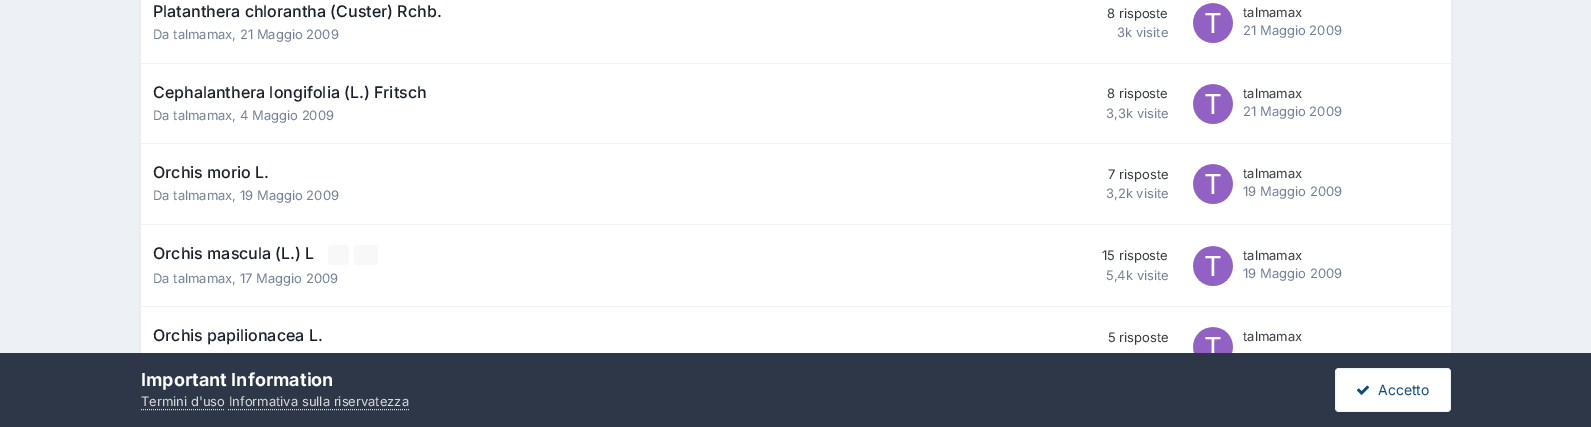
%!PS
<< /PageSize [1591 427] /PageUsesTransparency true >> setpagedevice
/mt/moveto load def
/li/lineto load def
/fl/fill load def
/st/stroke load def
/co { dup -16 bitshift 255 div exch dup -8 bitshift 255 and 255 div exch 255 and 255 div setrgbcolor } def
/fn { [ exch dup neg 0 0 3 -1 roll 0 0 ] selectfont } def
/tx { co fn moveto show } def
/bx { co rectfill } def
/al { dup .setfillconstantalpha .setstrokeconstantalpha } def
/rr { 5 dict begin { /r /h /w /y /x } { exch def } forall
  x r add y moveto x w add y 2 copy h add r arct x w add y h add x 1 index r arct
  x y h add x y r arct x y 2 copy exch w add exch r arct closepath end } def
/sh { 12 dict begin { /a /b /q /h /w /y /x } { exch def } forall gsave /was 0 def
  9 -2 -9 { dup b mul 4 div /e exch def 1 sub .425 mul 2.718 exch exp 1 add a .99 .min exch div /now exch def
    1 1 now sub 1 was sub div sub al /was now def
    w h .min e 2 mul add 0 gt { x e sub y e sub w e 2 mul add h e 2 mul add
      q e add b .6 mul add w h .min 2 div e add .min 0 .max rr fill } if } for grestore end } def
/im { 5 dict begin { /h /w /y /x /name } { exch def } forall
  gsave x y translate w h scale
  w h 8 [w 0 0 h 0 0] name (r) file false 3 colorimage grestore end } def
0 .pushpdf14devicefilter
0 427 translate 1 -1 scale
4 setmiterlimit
0 0 1591 427 16#EDF0F4 bx
16#2D3748 co
142 -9 1308 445 3 2 .1 sh
141 0 1310 353 16#FFFFFF bx
141 63 1310 1 16#F1F2F5 bx
(media/1.raw) 1193 3 40 40 im
141 143 1310 1 16#F1F2F5 bx
(media/1.raw) 1193 84 40 40 im
141 224 1310 1 16#F1F2F5 bx
(media/1.raw) 1193 164 40 40 im
141 306 1310 1 16#F1F2F5 bx
16#F8F8F9 co
328 245 21 20 4 rr fl
354 245 24 20 4 rr fl
(media/1.raw) 1193 246 40 40 im
(media/2.raw) 1193 327 40 26 im
0 353 1591 74 16#2D3748 bx
16#DADADA co
[1 1] 0 setdash
141 409.5 mt 225 409.5 li st
228 409.5 mt 409 409.5 li st
16#FFFFFF co
1335 368 116 44 4 rr fl
0.07 al
16#0E4C79 co
[] 0 setdash
1335.5 368.5 115 43 3.5 rr st
1 al
(media/3.raw) 1357 385 12 10 im
(Platanthera chlorantha \(Custer\) Rchb.) 153 17 /Inter-Medium 16 16#1A202C tx
(Da talmamax, 21 Maggio 2009) 153 39 /Inter-Regular 13 16#718096 tx
(8 risposte) 1107 18 /Inter-Regular 13 16#353C41 tx
(3k visite) 1117 37 /Inter-Regular 13 16#718096 tx
(talmamax) 1243 17 /Inter-Regular 13 16#353C41 tx
(21 Maggio 2009) 1243 35 /Inter-Regular 13 16#718096 tx
(Cephalanthera longifolia \(L.\) Fritsch) 153 98 /Inter-Medium 16 16#1A202C tx
(Da talmamax, 4 Maggio 2009) 153 120 /Inter-Regular 13 16#718096 tx
(8 risposte) 1107 98 /Inter-Regular 13 16#353C41 tx
(3,3k visite) 1106 118 /Inter-Regular 13 16#718096 tx
(talmamax) 1243 98 /Inter-Regular 13 16#353C41 tx
(21 Maggio 2009) 1243 116 /Inter-Regular 13 16#718096 tx
(Orchis morio L.) 153 178 /Inter-Medium 16 16#1A202C tx
(Da talmamax, 19 Maggio 2009) 153 200 /Inter-Regular 13 16#718096 tx
(7 risposte) 1108 179 /Inter-Regular 13 16#353C41 tx
(3,2k visite) 1106 198 /Inter-Regular 13 16#718096 tx
(talmamax) 1243 178 /Inter-Regular 13 16#353C41 tx
(19 Maggio 2009) 1243 196 /Inter-Regular 13 16#718096 tx
(Orchis mascula \(L.\) L) 153 259 /Inter-Medium 16 16#1A202C tx
(Da talmamax, 17 Maggio 2009) 153 283 /Inter-Regular 13 16#718096 tx
(15 risposte) 1102 260 /Inter-Regular 13 16#353C41 tx
(5,4k visite) 1106 280 /Inter-Regular 13 16#718096 tx
(talmamax) 1243 260 /Inter-Regular 13 16#353C41 tx
(19 Maggio 2009) 1243 278 /Inter-Regular 13 16#718096 tx
(Orchis papilionacea L.) 153 341 /Inter-Medium 16 16#1A202C tx
(5 risposte) 1108 342 /Inter-Regular 13 16#353C41 tx
(talmamax) 1243 341 /Inter-Regular 13 16#353C41 tx
(Important Information) 141 386 /Inter-Bold 18 16#FFFFFF tx
(Termini d'uso Informativa sulla riservatezza) 141 406 /Inter-Regular 13 16#DADADA tx
(Accetto) 1378 395 /Inter-Regular 14 16#0E4C79 tx
.poppdf14devicefilter showpage
